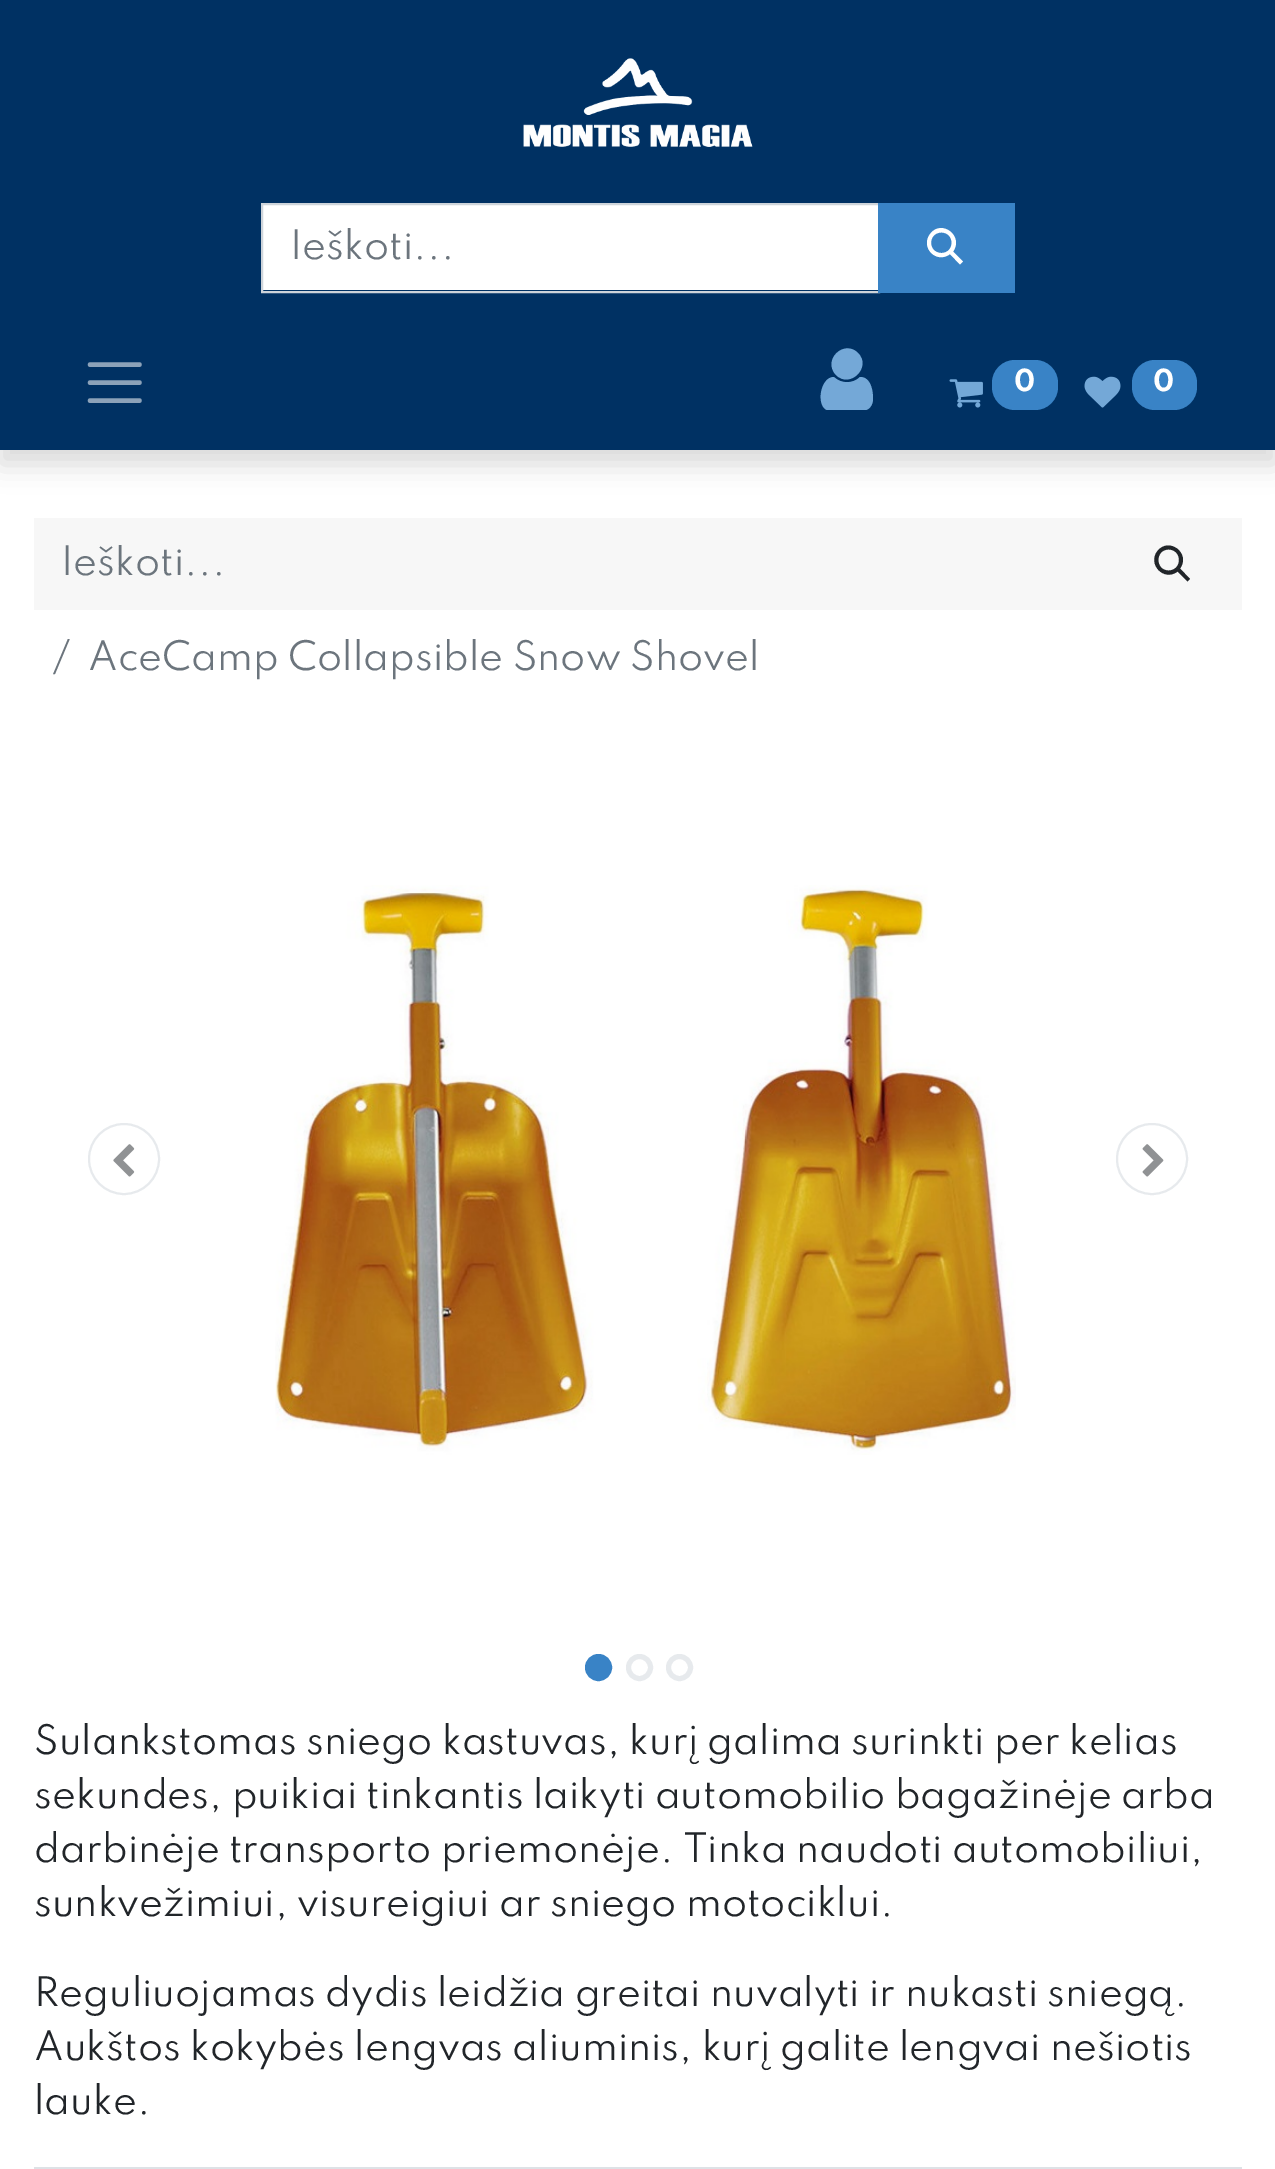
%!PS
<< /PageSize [1275 2169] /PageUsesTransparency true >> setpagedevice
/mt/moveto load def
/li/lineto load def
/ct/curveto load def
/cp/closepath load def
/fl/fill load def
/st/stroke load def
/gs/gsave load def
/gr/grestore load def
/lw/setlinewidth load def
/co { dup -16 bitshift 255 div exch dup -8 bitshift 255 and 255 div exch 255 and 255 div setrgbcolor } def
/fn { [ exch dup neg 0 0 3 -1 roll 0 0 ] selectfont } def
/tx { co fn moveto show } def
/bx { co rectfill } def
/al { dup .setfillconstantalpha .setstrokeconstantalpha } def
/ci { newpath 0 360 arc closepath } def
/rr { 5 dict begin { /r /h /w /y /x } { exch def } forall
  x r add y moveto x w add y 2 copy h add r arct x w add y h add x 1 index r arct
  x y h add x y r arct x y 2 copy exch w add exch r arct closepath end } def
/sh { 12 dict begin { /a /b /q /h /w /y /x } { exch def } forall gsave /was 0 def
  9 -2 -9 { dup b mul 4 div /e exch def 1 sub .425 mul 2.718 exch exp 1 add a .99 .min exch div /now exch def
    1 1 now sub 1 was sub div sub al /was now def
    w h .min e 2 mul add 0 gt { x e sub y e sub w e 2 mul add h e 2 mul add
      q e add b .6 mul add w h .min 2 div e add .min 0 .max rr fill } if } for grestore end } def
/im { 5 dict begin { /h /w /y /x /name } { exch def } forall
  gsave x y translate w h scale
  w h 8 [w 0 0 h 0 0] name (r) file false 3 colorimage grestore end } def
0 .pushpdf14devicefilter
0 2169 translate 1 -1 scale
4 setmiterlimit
0 0 1275 2169 16#FFFFFF bx
16#000000 co
0 14 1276 450 0 13.5 .15 sh
0 0 1275 450 16#003163 bx
(media/1.raw) 523 58 230 89 im
263 205 615 85 16#FFFFFF bx
16#CED4DA co
2 lw
262 204 617 88 rectstroke
878 203 137 90 16#3983C6 bx
16#FFFFFF co
930.5 233.5 mt 942 219 964 236.5 953 251.5 ct 963 261.5 li 960 264.5 li 950 254 li 936.5 264.5 919.5 247 930.5 233.5 ct cp 941.5 232.5 mt 927.5 232.5 927.5 253 941.5 253 ct 955 253 955 232.5 941.5 232.5 ct cp fl
16#8CA2B9 co
4.5 lw
1 setlinecap
90 364.5 mt 139.5 364.5 li 90 382.5 mt 139.5 382.5 li 90 400.5 mt 139.5 400.5 li st
16#74A8D7 co
873 399 mt 873 404 870 409 866 410 ct 836 410 li 827 410 li 816 406 820 377 834 377 ct 841 384 853 384 860 377 ct 871 377 873 391 873 399 ct cp 858 353 mt 872 367 850 389 836 375 ct 822 360 844 339 858 353 ct cp fl
(media/2.raw) 949 379 34 29 im
16#3983C6 co
992 360 66 50 23 rr fl
(media/3.raw) 1084 376 37 32 im
1132 360 65 50 23 rr fl
34 518 1208 92 16#F7F7F7 bx
16#212529 co
1157.5 551 mt 1169 536.5 1191 553.5 1180 568.5 ct 1190 579 li 1187.5 581.5 li 1177.5 571.5 li 1164 582 1147 564 1157.5 551 ct cp 1168.5 549.5 mt 1155 549.5 1155 570.5 1168.5 570.5 ct 1182.5 570.5 1182.5 549.5 1168.5 549.5 ct cp fl
16#E7EAED co
2 lw
0 setlinecap
124 1159 35 ci st
(media/4.raw) 113 1144 22 33 im
(media/5.raw) 275 885 741 570 im
1152 1159 35 ci st
(media/6.raw) 1142 1144 22 33 im
16#3983C6 co
598.5 1667.5 11 ci gs fl gr
5 lw
st
16#E7EAED co
639.5 1667.5 11 ci st
679.5 1667.5 11 ci st
34 2167 1208 2 16#DEE2E6 bx
(Ieškoti...) 290 259 /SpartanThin-Regular 36 16#6C757D tx
(0) 1014 391 /SpartanThin-Bold 27 16#FFFFFF tx
(0) 1153 391 /SpartanThin-Bold 27 16#FFFFFF tx
gs
61 545 961 42 rectclip
(Ieškoti...) 61 575 /SpartanThin-Regular 36 16#6C757D tx
gr
(/) 52 670 /SpartanThin-Regular 36 16#6C757D tx
(AceCamp Collapsible Snow Shovel) 88 670 /SpartanThin-Regular 36 16#6C757D tx
(Sulankstomas sniego kastuvas, kurį galima surinkti per kelias) 34 1754 /SpartanThin-Regular 36 16#212529 tx
(sekundes, puikiai tinkantis laikyti automobilio bagažinėje arba) 34 1808 /SpartanThin-Regular 36 16#212529 tx
(darbinėje transporto priemonėje. Tinka naudoti automobiliui,) 34 1862 /SpartanThin-Regular 36 16#212529 tx
(sunkvežimiui, visureigiui ar sniego motociklui.) 34 1916 /SpartanThin-Regular 36 16#212529 tx
(Reguliuojamas dydis leidžia greitai nuvalyti ir nukasti sniegą.) 34 2006 /SpartanThin-Regular 36 16#212529 tx
(Aukštos kokybės lengvas aliuminis, kurį galite lengvai nešiotis) 34 2060 /SpartanThin-Regular 36 16#212529 tx
(lauke.) 34 2114 /SpartanThin-Regular 36 16#212529 tx
.poppdf14devicefilter showpage
